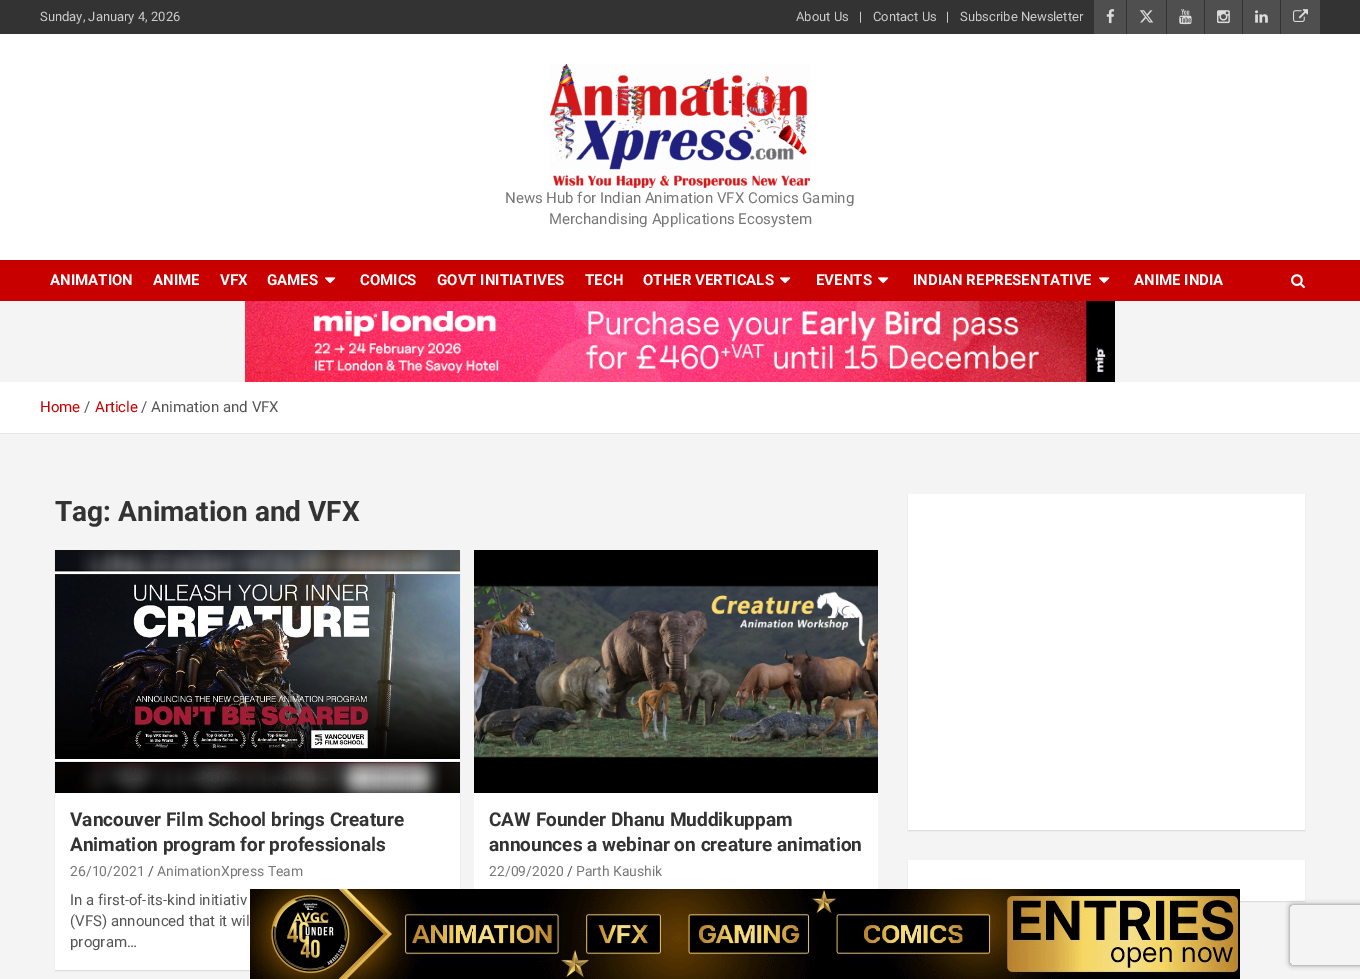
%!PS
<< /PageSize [1360 979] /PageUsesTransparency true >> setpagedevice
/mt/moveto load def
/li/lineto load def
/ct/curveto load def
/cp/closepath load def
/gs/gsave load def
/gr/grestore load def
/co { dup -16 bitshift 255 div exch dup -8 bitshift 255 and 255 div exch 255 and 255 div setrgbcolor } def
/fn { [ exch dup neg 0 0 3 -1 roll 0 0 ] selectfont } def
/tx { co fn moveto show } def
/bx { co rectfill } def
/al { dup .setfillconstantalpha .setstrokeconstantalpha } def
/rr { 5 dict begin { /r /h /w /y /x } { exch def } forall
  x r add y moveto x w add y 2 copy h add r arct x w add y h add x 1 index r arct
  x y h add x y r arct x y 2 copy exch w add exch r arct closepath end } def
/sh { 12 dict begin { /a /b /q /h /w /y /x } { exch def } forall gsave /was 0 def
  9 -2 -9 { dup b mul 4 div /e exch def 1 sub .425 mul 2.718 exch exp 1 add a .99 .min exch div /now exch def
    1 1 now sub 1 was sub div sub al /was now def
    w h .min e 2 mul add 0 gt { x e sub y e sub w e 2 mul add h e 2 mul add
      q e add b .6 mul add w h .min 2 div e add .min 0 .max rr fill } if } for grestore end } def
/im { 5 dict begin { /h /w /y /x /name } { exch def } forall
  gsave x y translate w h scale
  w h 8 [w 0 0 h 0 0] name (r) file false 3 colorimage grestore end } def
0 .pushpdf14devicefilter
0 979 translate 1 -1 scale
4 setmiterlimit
0 0 1360 979 16#F4F4F4 bx
0 0 1360 34 16#333333 bx
1094 0 32 34 16#4F4F4F bx
(media/1.raw) 1106 9 9 15 im
1127 0 39 34 16#4F4F4F bx
(media/2.raw) 1139 10 15 13 im
1167 0 37 34 16#4F4F4F bx
(media/3.raw) 1179 9 13 16 im
1205 0 37 34 16#4F4F4F bx
(media/4.raw) 1217 10 13 14 im
1243 0 37 34 16#4F4F4F bx
(media/5.raw) 1255 10 13 13 im
1281 0 39 34 16#4F4F4F bx
(media/6.raw) 1293 9 15 13 im
0 34 1360 226 16#FFFFFF bx
(media/7.raw) 550 64 260 124 im
0 260 1360 41 16#C80000 bx
(media/8.raw) 325 277 11 7 im
(media/8.raw) 780 277 11 7 im
(media/8.raw) 878 277 11 7 im
(media/8.raw) 1099 277 11 7 im
(media/9.raw) 1291 274 14 15 im
(media/10.raw) 245 301 870 81 im
0 382 1360 51 16#FFFFFF bx
0 433 1360 1 16#E6E6E6 bx
16#000000 co
55 551 405 420 0 .5 .1 sh
55 793 405 177 16#FFFFFF bx
(media/11.raw) 55 550 405 243 im
474 793 404 96 16#FFFFFF bx
(media/12.raw) 474 550 404 243 im
16#000000 co
908 495 397 336 0 .5 .1 sh
908 494 397 336 16#FFFFFF bx
16#000000 co
908 861 397 41 0 .5 .1 sh
908 860 397 41 16#FFFFFF bx
(media/13.raw) 250 889 990 90 im
gs
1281 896 mt 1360 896 li 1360 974 li 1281 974 li cp 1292 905 mt 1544 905 li 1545 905 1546 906 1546 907 ct 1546 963 li 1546 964 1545 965 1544 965 ct 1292 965 li 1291 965 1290 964 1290 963 ct 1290 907 li 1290 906 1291 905 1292 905 ct cp eoclip newpath
16#808080 co
1290 905 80 60 2 2.5 1 sh
gr
(Sunday, January 4, 2026) 40 21 /Roboto-Regular 13 16#CCCCCC tx
(About Us) 796 21 /Roboto-Regular 13 16#CCCCCC tx
(|) 859 21 /Roboto-Regular 13 16#CCCCCC tx
(Contact Us) 873 21 /Roboto-Regular 13 16#CCCCCC tx
(|) 946 21 /Roboto-Regular 13 16#CCCCCC tx
(Subscribe Newsletter) 960 21 /Roboto-Regular 13 16#CCCCCC tx
(News Hub for Indian Animation VFX Comics Gaming) 505 203 /Roboto-Regular 15 16#777777 tx
(Merchandising Applications Ecosystem) 549 224 /Roboto-Regular 15 16#777777 tx
(ANIMATION) 50 285 /Roboto-Bold 15 16#FFFFFF tx
(ANIME) 153 285 /Roboto-Bold 15 16#FFFFFF tx
(VFX) 220 285 /Roboto-Bold 15 16#FFFFFF tx
(GAMES) 267 285 /Roboto-Bold 15 16#FFFFFF tx
(COMICS) 360 285 /Roboto-Bold 15 16#FFFFFF tx
(GOVT INITIATIVES) 437 285 /Roboto-Bold 15 16#FFFFFF tx
(TECH) 585 285 /Roboto-Bold 15 16#FFFFFF tx
(OTHER VERTICALS) 643 285 /Roboto-Bold 15 16#FFFFFF tx
(EVENTS) 816 285 /Roboto-Bold 15 16#FFFFFF tx
(INDIAN REPRESENTATIVE) 913 285 /Roboto-Bold 15 16#FFFFFF tx
(ANIME INDIA) 1134 285 /Roboto-Bold 15 16#FFFFFF tx
(Home) 40 412 /Roboto-Regular 15 16#C80000 tx
(/) 84 412 /Roboto-Regular 15 16#555555 tx
(Article) 95 412 /Roboto-Regular 15 16#C80000 tx
(/ Animation and VFX) 141 412 /Roboto-Regular 15 16#555555 tx
(Tag: Animation and VFX) 55 521 /Roboto-Bold 28 16#333333 tx
(Vancouver Film School brings Creature) 70 826 /Roboto-Bold 19 16#333333 tx
(Animation program for professionals) 70 851 /Roboto-Bold 19 16#333333 tx
(26/10/2021) 70 876 /Roboto-Regular 14 16#777777 tx
(/) 148 876 /Roboto-Regular 14 16#555555 tx
(AnimationXpress Team) 157 876 /Roboto-Regular 14 16#777777 tx
(In a first-of-its-kind initiativ) 70 905 /Roboto-Regular 15 16#555555 tx
(\(VFS\) announced that it wil) 70 926 /Roboto-Regular 15 16#555555 tx
(program…) 70 947 /Roboto-Regular 15 16#555555 tx
(CAW Founder Dhanu Muddikuppam) 489 826 /Roboto-Bold 19 16#333333 tx
(announces a webinar on creature animation) 489 851 /Roboto-Bold 19 16#333333 tx
(22/09/2020) 489 876 /Roboto-Regular 14 16#777777 tx
(/) 567 876 /Roboto-Regular 14 16#555555 tx
(Parth Kaushik) 576 876 /Roboto-Regular 14 16#777777 tx
.poppdf14devicefilter showpage
